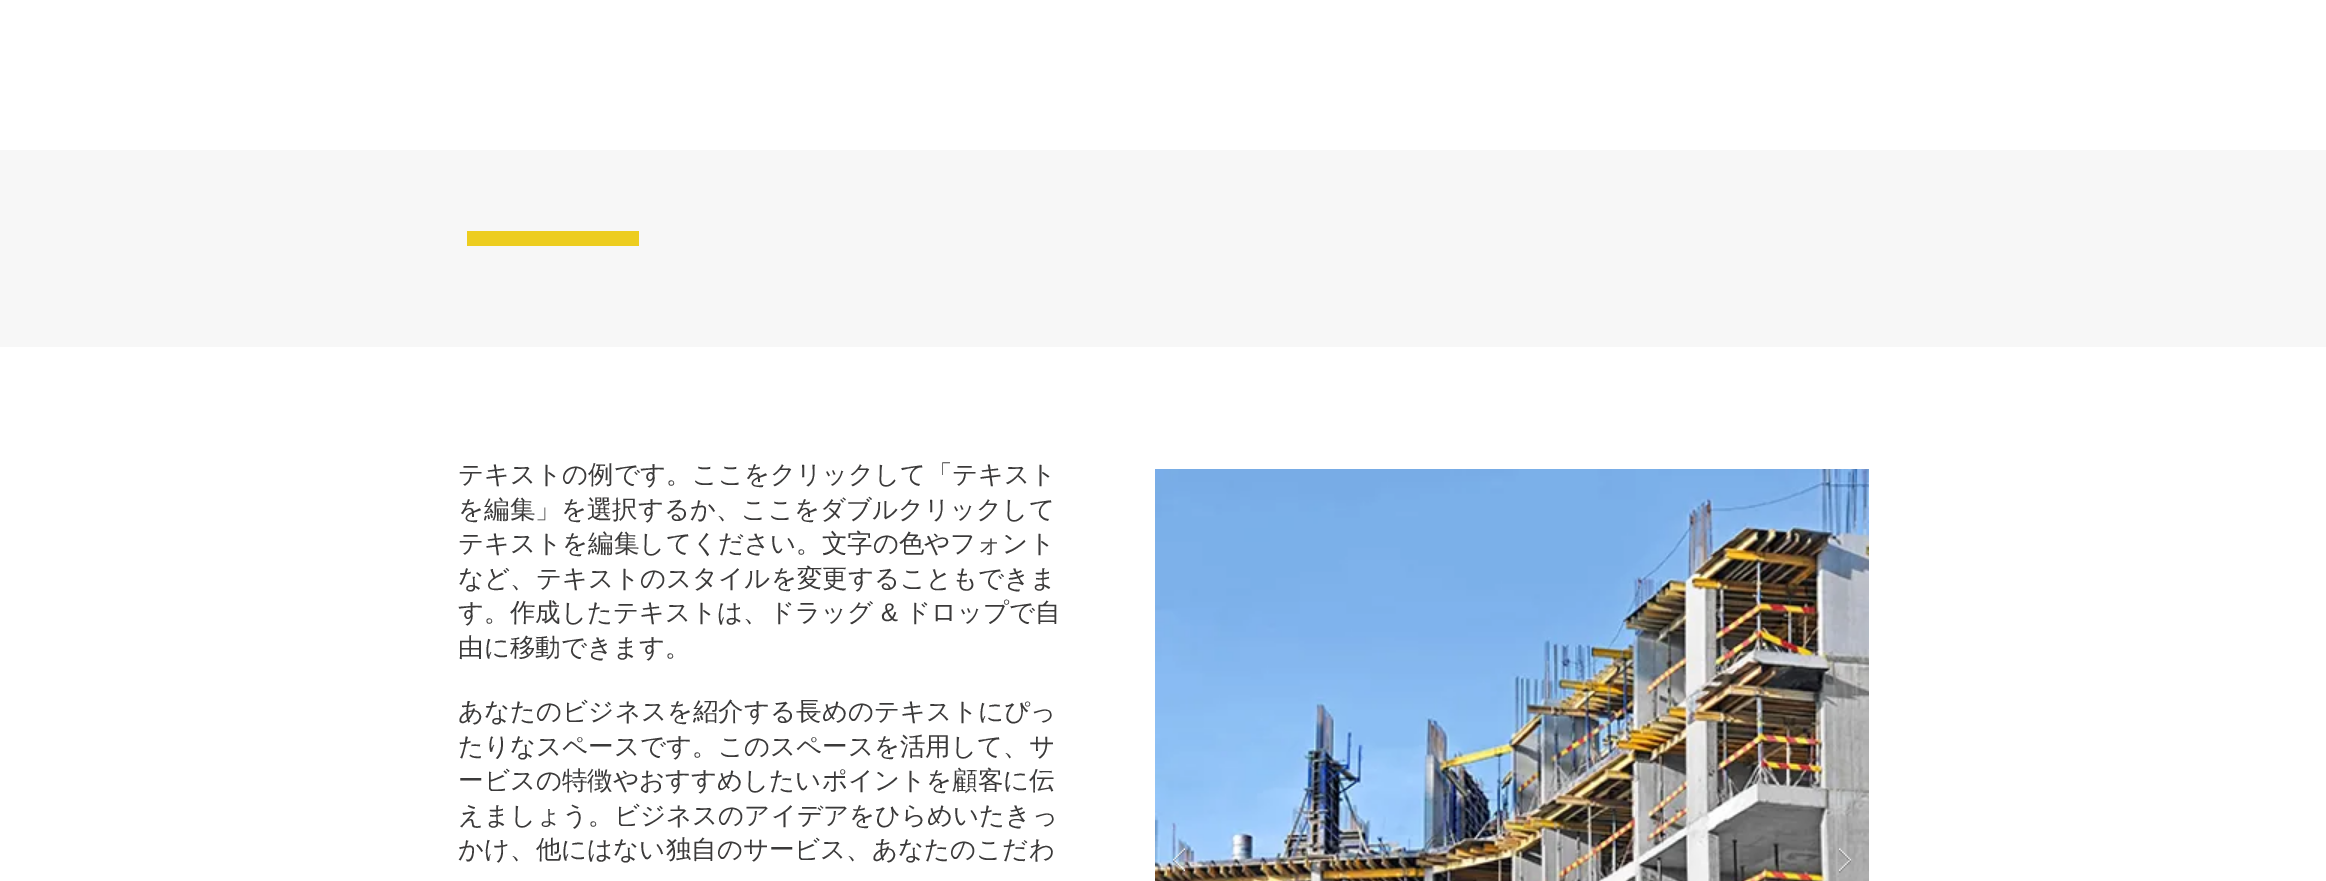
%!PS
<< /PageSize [2326 881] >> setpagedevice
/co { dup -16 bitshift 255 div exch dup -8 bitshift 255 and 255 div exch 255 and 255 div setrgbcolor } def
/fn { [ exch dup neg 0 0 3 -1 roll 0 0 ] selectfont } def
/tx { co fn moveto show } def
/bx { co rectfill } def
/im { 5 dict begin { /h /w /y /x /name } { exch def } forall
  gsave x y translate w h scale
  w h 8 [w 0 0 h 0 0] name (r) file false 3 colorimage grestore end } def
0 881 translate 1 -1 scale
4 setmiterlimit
0 0 2326 881 16#F7F7F7 bx
0 0 2326 150 16#FFFFFF bx
467 231 172 15 16#EDCD1F bx
0 347 2326 534 16#FFFFFF bx
(media/1.raw) 1155 469 714 412 im
(media/2.raw) 1173 848 12 25 im
(media/3.raw) 1839 848 12 25 im
(テキストの例です。ここをクリックして「テキスト) 458 483 /WenQuanYiZenHei-Medium 25.5 16#3B3A3A tx
(を編集」を選択するか、ここをダブルクリックして) 458 518 /WenQuanYiZenHei-Medium 25.5 16#3B3A3A tx
(テキストを編集してください。文字の色やフォント) 458 552 /WenQuanYiZenHei-Medium 25.5 16#3B3A3A tx
(など、テキストのスタイルを変更することもできま) 458 587 /WenQuanYiZenHei-Medium 25.5 16#3B3A3A tx
(す。作成したテキストは、ドラッグ) 458 621 /WenQuanYiZenHei-Medium 25.5 16#3B3A3A tx
(&) 881 621 /LiberationSans-Regular 25.5 16#3B3A3A tx
(ドロップで自) 905 621 /WenQuanYiZenHei-Medium 25.5 16#3B3A3A tx
(由に移動できます。) 458 656 /WenQuanYiZenHei-Medium 25.5 16#3B3A3A tx
(あなたのビジネスを紹介する長めのテキストにぴっ) 458 720 /WenQuanYiZenHei-Medium 25.5 16#3B3A3A tx
(たりなスペースです。このスペースを活用して、サ) 458 755 /WenQuanYiZenHei-Medium 25.5 16#3B3A3A tx
(ービスの特徴やおすすめしたいポイントを顧客に伝) 458 789 /WenQuanYiZenHei-Medium 25.5 16#3B3A3A tx
(えましょう。ビジネスのアイデアをひらめいたきっ) 458 824 /WenQuanYiZenHei-Medium 25.5 16#3B3A3A tx
(かけ、他にはない独自のサービス、あなたのこだわ) 458 858 /WenQuanYiZenHei-Medium 25.5 16#3B3A3A tx
showpage
